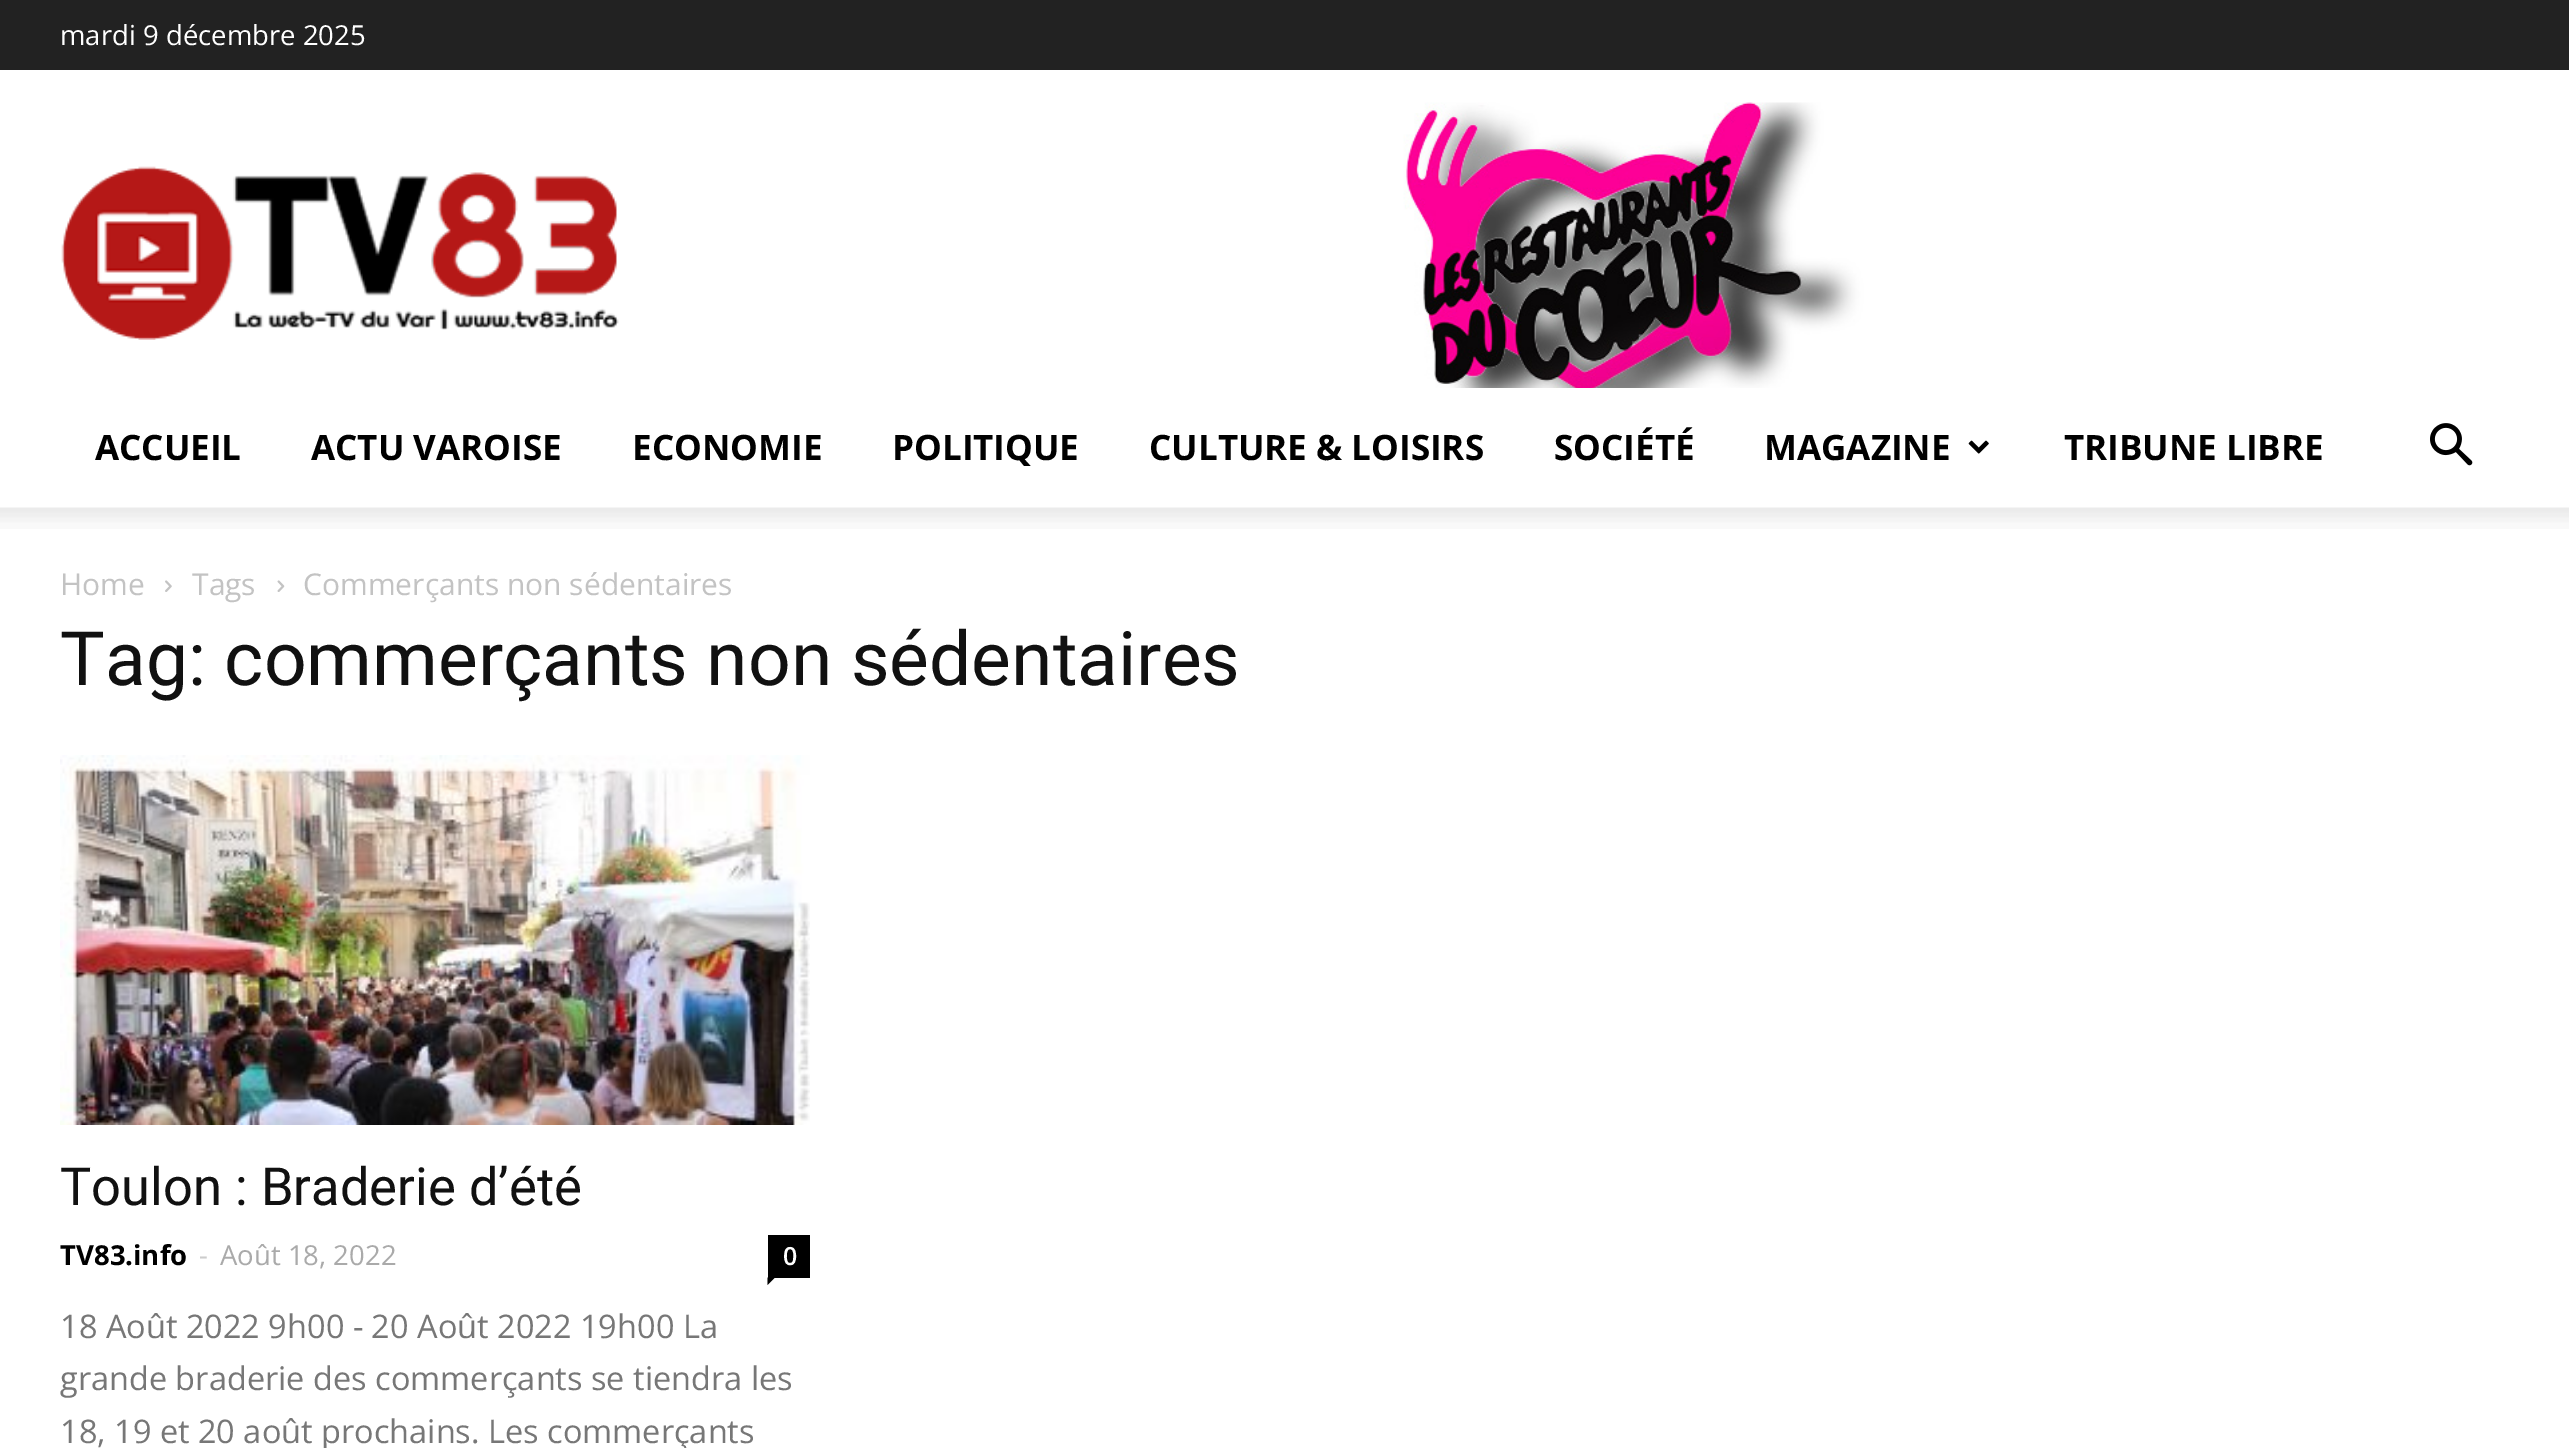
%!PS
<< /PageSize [2569 1448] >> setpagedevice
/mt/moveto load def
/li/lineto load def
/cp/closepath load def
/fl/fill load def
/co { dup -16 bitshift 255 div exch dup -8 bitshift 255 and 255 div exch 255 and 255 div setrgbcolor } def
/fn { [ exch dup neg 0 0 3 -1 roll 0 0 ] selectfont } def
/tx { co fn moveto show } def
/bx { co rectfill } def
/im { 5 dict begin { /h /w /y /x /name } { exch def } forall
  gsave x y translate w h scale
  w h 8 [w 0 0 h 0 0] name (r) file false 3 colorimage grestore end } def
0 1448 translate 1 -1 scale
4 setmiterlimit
0 0 2569 1448 16#FFFFFF bx
0 0 2569 70 16#222222 bx
(media/1.raw) 61 166 558 174 im
(media/2.raw) 1232 102 736 286 im
(media/3.raw) 1968 440 21 14 im
(media/4.raw) 2430 423 43 43 im
(media/5.raw) 0 507 2569 22 im
(media/6.raw) 165 580 7 12 im
(media/7.raw) 277 580 8 12 im
(media/8.raw) 60 755 750 370 im
768 1235 42 43 16#000000 bx
767.5 1277.5 mt 775 1277.5 li 767.5 1285 li cp fl
(mardi 9 décembre 2025) 60 45 /OpenSans-Regular 27.5 16#FFFFFF tx
(ACCUEIL) 95 460 /OpenSans-Bold 35 16#000000 tx
(ACTU VAROISE) 311 460 /OpenSans-Bold 35 16#000000 tx
(ECONOMIE) 632 460 /OpenSans-Bold 35 16#000000 tx
(POLITIQUE) 892 460 /OpenSans-Bold 35 16#000000 tx
(CULTURE & LOISIRS) 1149 460 /OpenSans-Bold 35 16#000000 tx
(SOCIÉTÉ) 1554 460 /OpenSans-Bold 35 16#000000 tx
(MAGAZINE) 1764 460 /OpenSans-Bold 35 16#000000 tx
(TRIBUNE LIBRE) 2064 460 /OpenSans-Bold 35 16#000000 tx
(Home) 60 595 /OpenSans-Regular 30 16#C3C3C3 tx
(Tags) 192 595 /OpenSans-Regular 30 16#C3C3C3 tx
(Commerçants non sédentaires) 303 595 /OpenSans-Regular 30 16#C3C3C3 tx
(Tag: commerçants non sédentaires) 60 685 /Roboto-Regular 75 16#111111 tx
(Toulon : Braderie d’été) 60 1205 /Roboto-Regular 52.5 16#111111 tx
(TV83.info) 60 1265 /OpenSans-Bold 27.5 16#000000 tx
(-) 199 1265 /OpenSans-Regular 27.5 16#CCCCCC tx
(Août 18, 2022) 220 1265 /OpenSans-Regular 27.5 16#AAAAAA tx
(0) 783 1265 /OpenSans-SemiBold 25 16#FFFFFF tx
(18 Août 2022 9h00 - 20 Août 2022 19h00 La) 60 1338 /OpenSans-Regular 32.5 16#777777 tx
(grande braderie des commerçants se tiendra les) 60 1390 /OpenSans-Regular 32.5 16#777777 tx
(18, 19 et 20 août prochains. Les commerçants) 60 1443 /OpenSans-Regular 32.5 16#777777 tx
showpage
